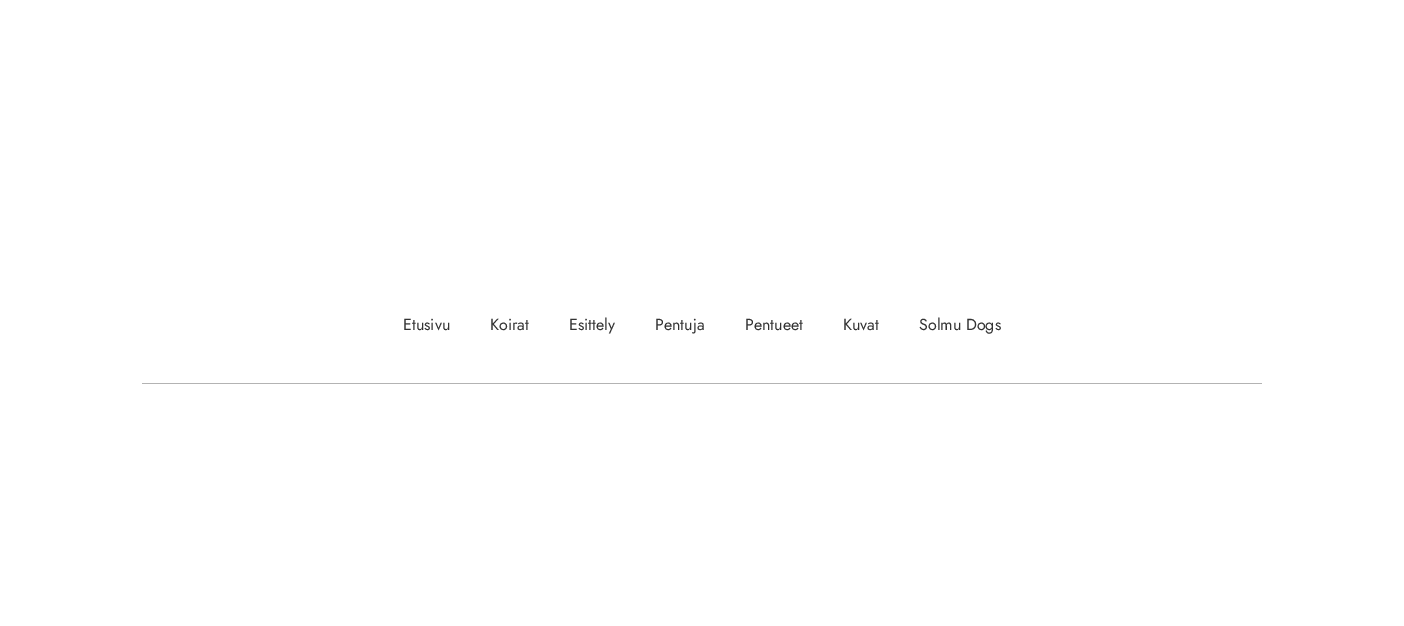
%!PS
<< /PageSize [1404 626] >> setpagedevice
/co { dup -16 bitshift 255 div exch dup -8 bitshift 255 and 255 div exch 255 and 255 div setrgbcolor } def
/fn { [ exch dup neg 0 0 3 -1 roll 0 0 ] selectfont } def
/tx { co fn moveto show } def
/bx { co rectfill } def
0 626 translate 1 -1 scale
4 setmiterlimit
0 0 1404 626 16#FFFFFF bx
142 383 1120 1 16#B3B3B3 bx
(Etusivu) 403 330 /Jost-Regular 16 16#333333 tx
(Koirat) 490 330 /Jost-Regular 16 16#333333 tx
(Esittely) 569 330 /Jost-Regular 16 16#333333 tx
(Pentuja) 655 330 /Jost-Regular 16 16#333333 tx
(Pentueet) 745 330 /Jost-Regular 16 16#333333 tx
(Kuvat) 843 330 /Jost-Regular 16 16#333333 tx
(Solmu Dogs) 919 330 /Jost-Regular 16 16#333333 tx
showpage
